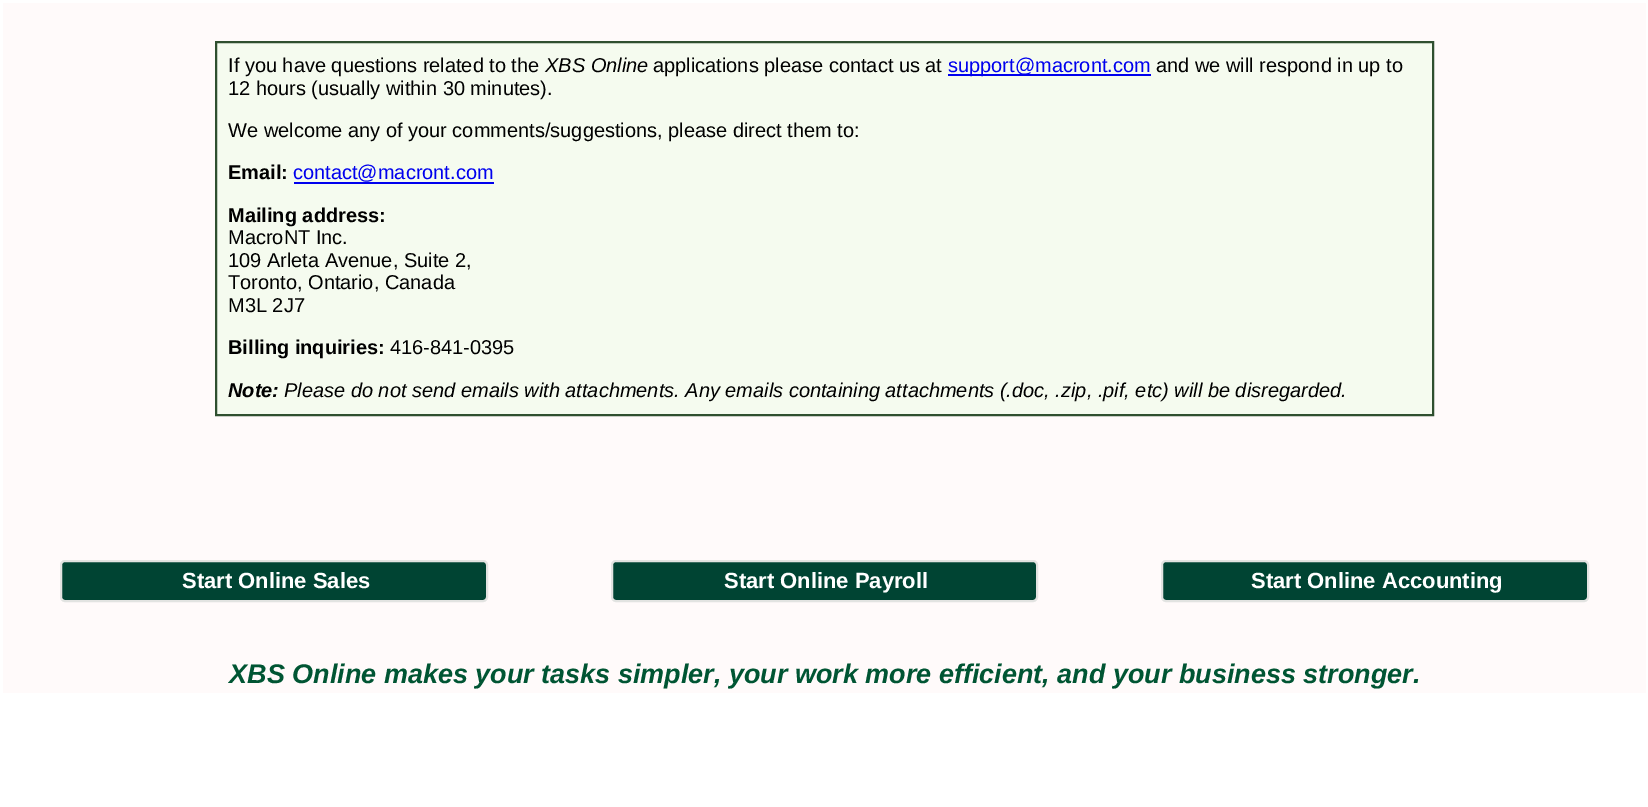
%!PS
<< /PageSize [1648 807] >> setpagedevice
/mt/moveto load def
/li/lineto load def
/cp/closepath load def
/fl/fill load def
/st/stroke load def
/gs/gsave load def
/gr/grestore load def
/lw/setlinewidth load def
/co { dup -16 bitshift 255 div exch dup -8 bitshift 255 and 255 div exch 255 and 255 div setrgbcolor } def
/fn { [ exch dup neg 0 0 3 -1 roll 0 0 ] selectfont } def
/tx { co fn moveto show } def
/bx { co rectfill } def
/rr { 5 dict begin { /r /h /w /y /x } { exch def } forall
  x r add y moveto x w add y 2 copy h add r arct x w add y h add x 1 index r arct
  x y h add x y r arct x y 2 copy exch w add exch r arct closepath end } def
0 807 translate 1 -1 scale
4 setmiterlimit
0 0 1648 807 16#FFFFFF bx
3 3 1643 690 16#FFFAFA bx
16#F5FBEF co
216 42 mt 1433 42 li 1433 415 li 216 415 li cp gs fl gr
16#2F4F2F co
2 lw
st
948 74 203 2 16#0000EE bx
294 182 200 2 16#0000EE bx
16#004433 co
61 561 426 40 4 rr gs fl gr
16#E2E3E1 co
st
16#004433 co
612 561 425 40 4 rr gs fl gr
16#E2E3E1 co
st
16#004433 co
1162 561 426 40 4 rr gs fl gr
16#E2E3E1 co
st
(If you have questions related to the) 228 72 /LiberationSans-Regular 20 16#000000 tx
(XBS Online) 545 72 /LiberationSans-Italic 20 16#000000 tx
(applications please contact us at) 653 72 /LiberationSans-Regular 20 16#000000 tx
(support@macront.com) 948 72 /LiberationSans-Regular 20 16#0000EE tx
(and we will respond in up to) 1156 72 /LiberationSans-Regular 20 16#000000 tx
(12 hours \(usually within 30 minutes\).) 228 95 /LiberationSans-Regular 20 16#000000 tx
(We welcome any of your comments/suggestions, please direct them to:) 228 137 /LiberationSans-Regular 20 16#000000 tx
(Email:) 228 179 /LiberationSans-Bold 20 16#000000 tx
(contact@macront.com) 293 179 /LiberationSans-Regular 20 16#0000EE tx
(Mailing address:) 228 222 /LiberationSans-Bold 20 16#000000 tx
(MacroNT Inc.) 228 244 /LiberationSans-Regular 20 16#000000 tx
(109 Arleta Avenue, Suite 2,) 228 267 /LiberationSans-Regular 20 16#000000 tx
(Toronto, Ontario, Canada) 228 289 /LiberationSans-Regular 20 16#000000 tx
(M3L 2J7) 228 312 /LiberationSans-Regular 20 16#000000 tx
(Billing inquiries:) 228 354 /LiberationSans-Bold 20 16#000000 tx
(416-841-0395) 390 354 /LiberationSans-Regular 20 16#000000 tx
(Note:) 228 397 /LiberationSans-BoldItalic 20 16#000000 tx
(Please do not send emails with attachments. Any emails containing attachments \(.doc, .zip, .pif, etc\) will be disregarded.) 284 397 /LiberationSans-Italic 20 16#000000 tx
(Start Online Sales) 182 588 /LiberationSans-Bold 22 16#FFFFFF tx
(Start Online Payroll) 724 588 /LiberationSans-Bold 22 16#FFFFFF tx
(Start Online Accounting) 1251 588 /LiberationSans-Bold 22 16#FFFFFF tx
(XBS Online makes your tasks simpler, your work more efficient, and your business stronger.) 229 683 /LiberationSans-BoldItalic 27 16#005533 tx
showpage
